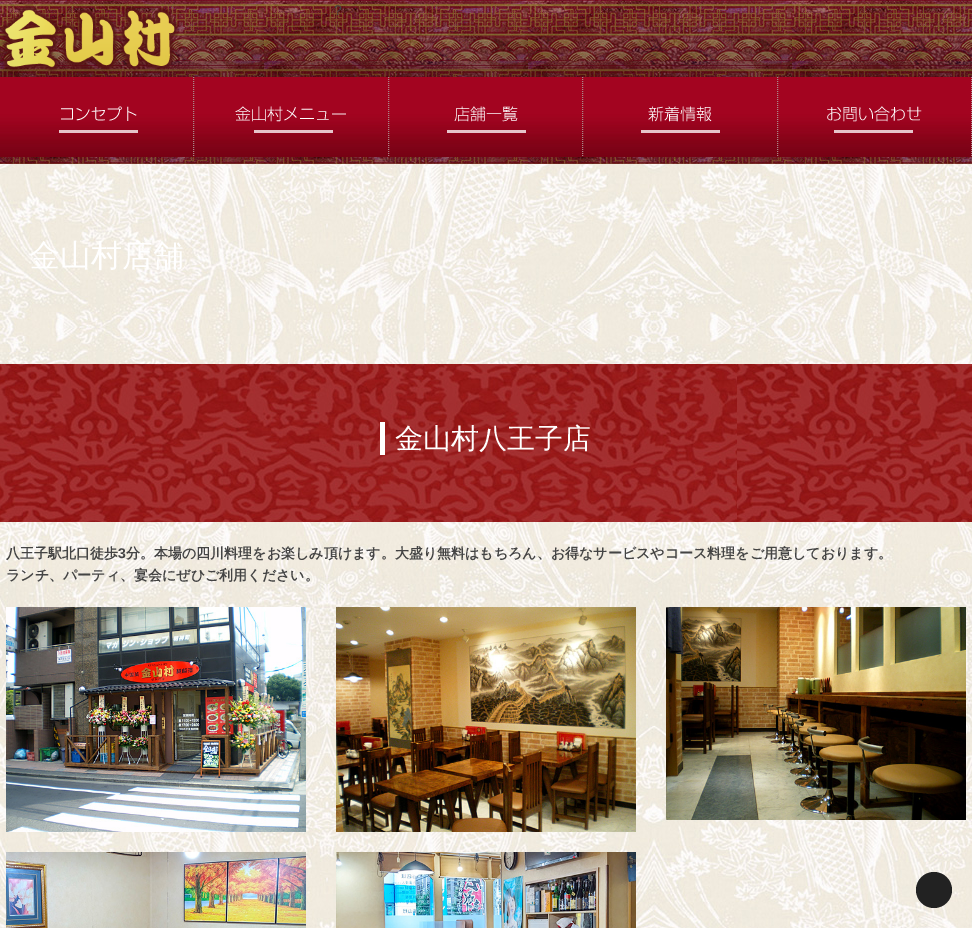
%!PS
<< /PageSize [972 928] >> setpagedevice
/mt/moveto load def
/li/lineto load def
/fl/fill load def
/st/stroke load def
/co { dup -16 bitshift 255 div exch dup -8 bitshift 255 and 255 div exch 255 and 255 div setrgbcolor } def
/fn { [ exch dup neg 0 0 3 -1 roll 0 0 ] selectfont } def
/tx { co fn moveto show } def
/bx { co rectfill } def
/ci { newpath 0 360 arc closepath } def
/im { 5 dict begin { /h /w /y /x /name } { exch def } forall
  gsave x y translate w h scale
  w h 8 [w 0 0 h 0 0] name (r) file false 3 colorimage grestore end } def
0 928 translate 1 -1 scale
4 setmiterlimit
0 0 972 928 16#FFFFFF bx
(media/1.raw) 0 164 972 764 im
(media/2.raw) 0 0 972 164 im
(media/3.raw) 1 5 178 66 im
(media/4.raw) 0 77 972 80 im
16#AA8888 co
[1 1] 0 setdash
193.5 77 mt 193.5 157 li st
(media/5.raw) 59 106 79 27 im
388.5 77 mt 388.5 157 li st
(media/6.raw) 235 106 111 27 im
582.5 77 mt 582.5 157 li st
(media/7.raw) 447 106 79 27 im
777.5 77 mt 777.5 157 li st
(media/8.raw) 641 106 79 27 im
971.5 77 mt 971.5 157 li st
(media/9.raw) 827 106 95 27 im
(media/10.raw) 0 364 972 158 im
380 422 5 33 16#FFFFFF bx
(media/11.raw) 6 607 300 225 im
(media/12.raw) 336 607 300 225 im
(media/13.raw) 666 607 300 213 im
(media/14.raw) 6 852 300 76 im
(media/15.raw) 336 852 300 76 im
16#222222 co
934 890 18 ci fl
(?) 334 15 /LiberationSans-Regular 14 16#444444 tx
(金山村店舗) 29 266 /WenQuanYiZenHei-Medium 31 16#FFFFFF tx
(金山村八王子店) 395 448 /WenQuanYiZenHei-Medium 28 16#FFFFFF tx
(八王子駅北口徒歩) 6 558 /WenQuanYiZenHei-Bold 14 16#444444 tx
(3) 118 558 /LiberationSans-Bold 14 16#444444 tx
(分。本場の四川料理をお楽しみ頂けます。大盛り無料はもちろん、お得なサービスやコース料理をご用意しております。) 126 558 /WenQuanYiZenHei-Bold 14 16#444444 tx
(ランチ、パーティ、宴会にぜひご利用ください。) 6 580 /WenQuanYiZenHei-Bold 14 16#444444 tx
showpage
